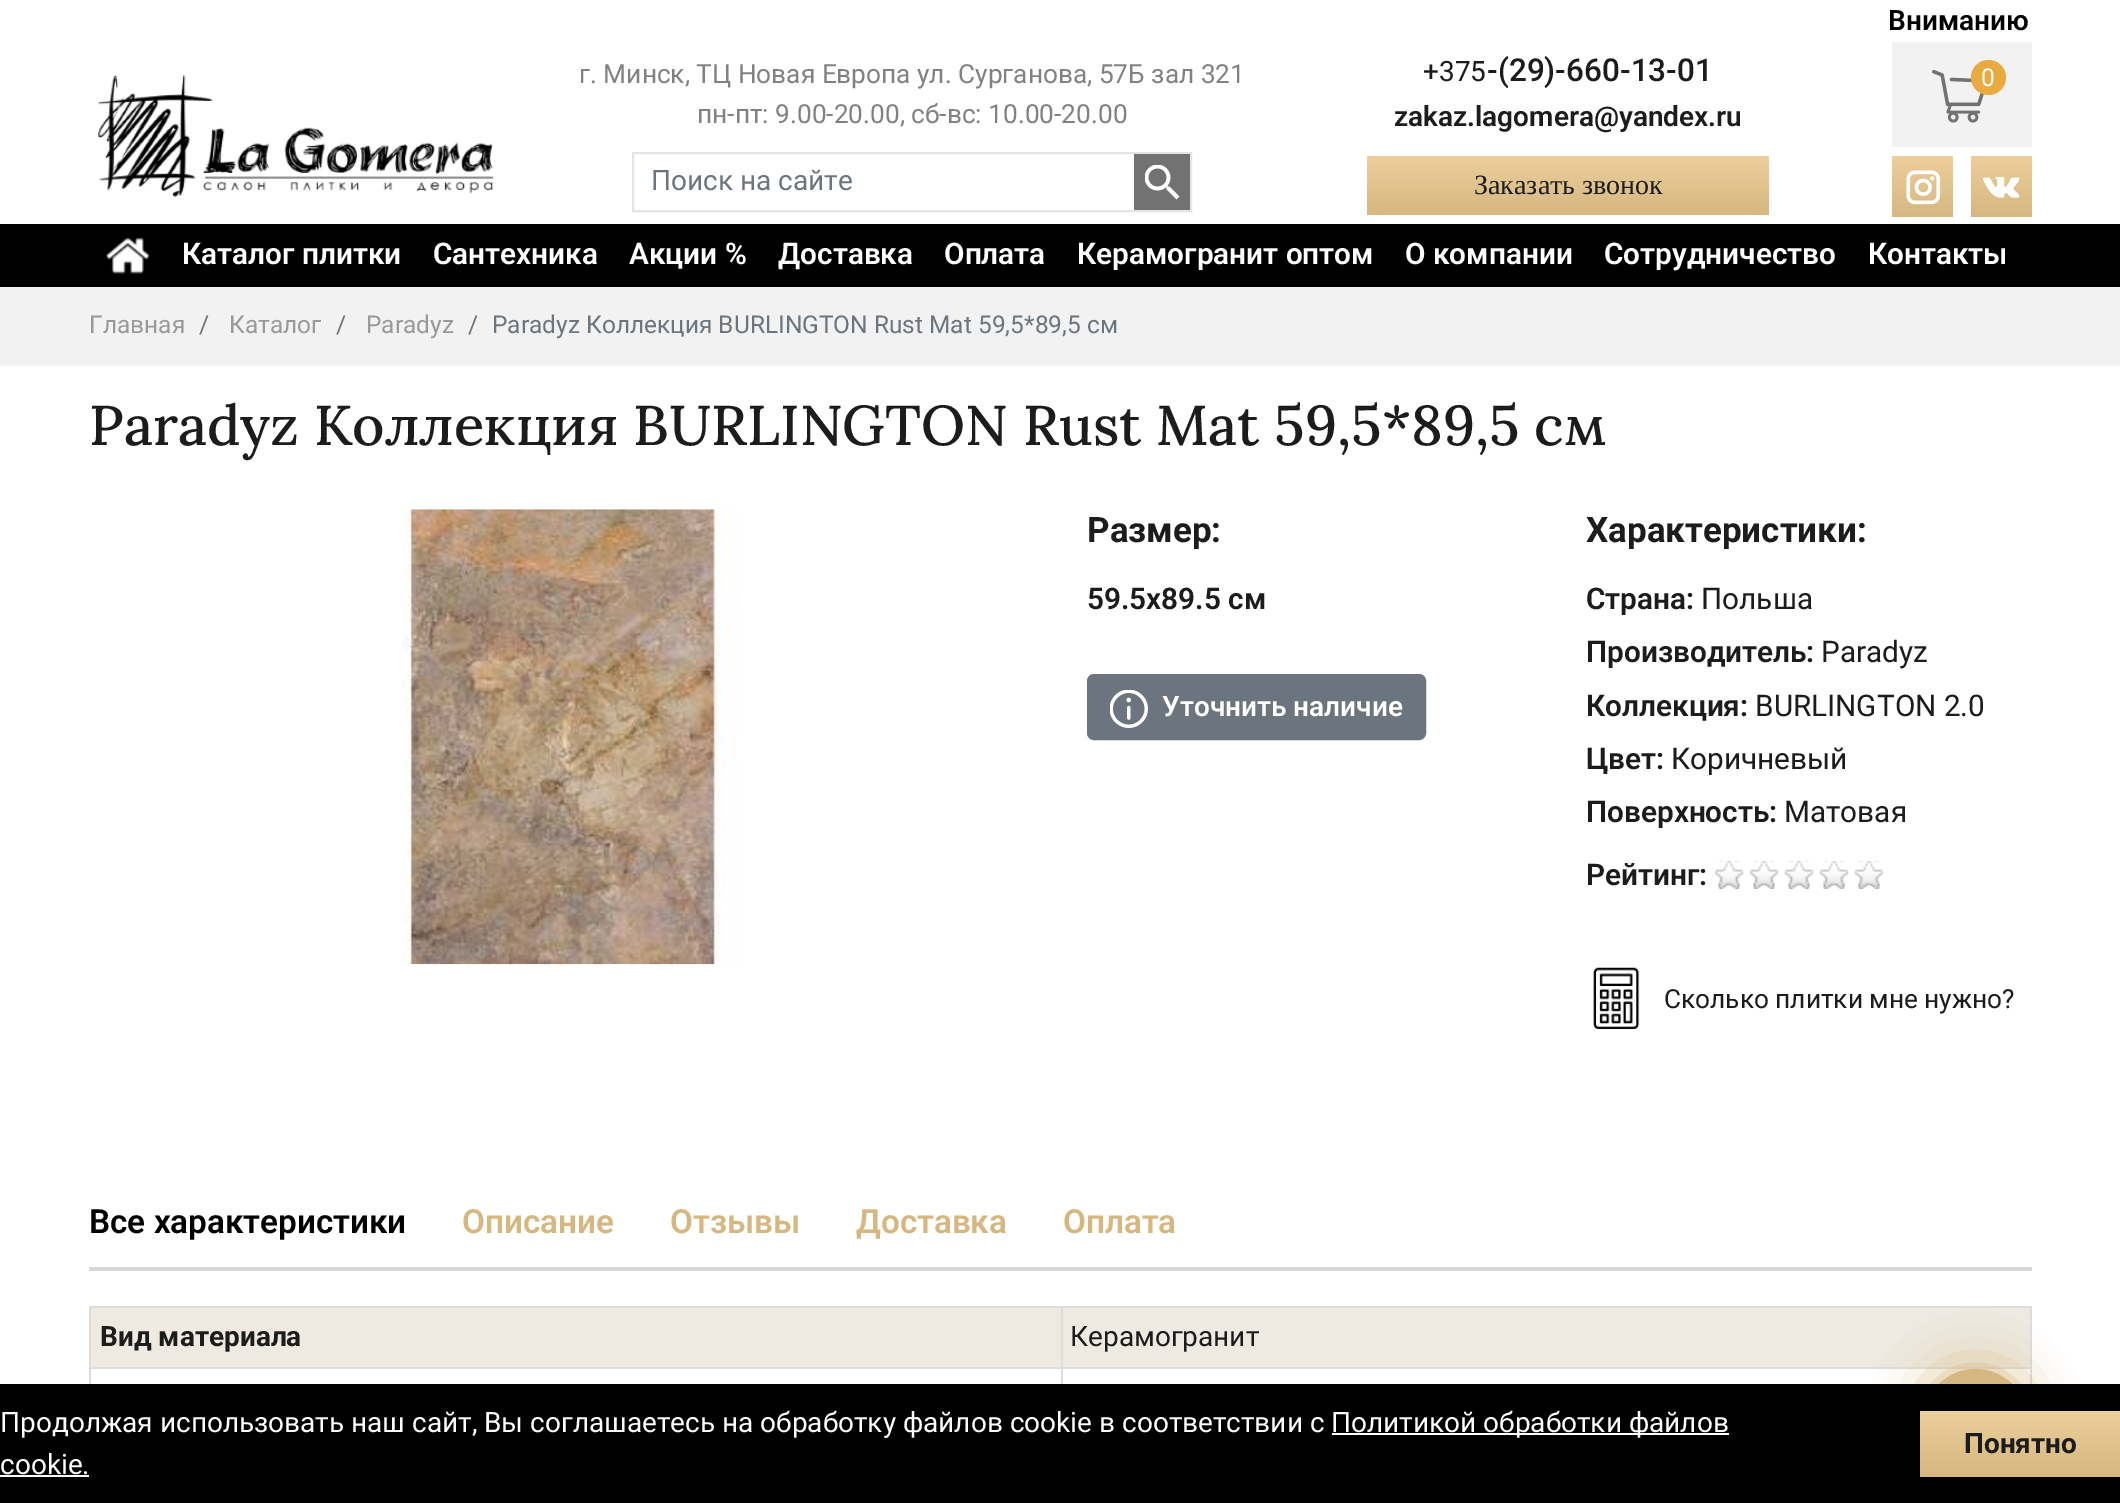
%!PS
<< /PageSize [2120 1503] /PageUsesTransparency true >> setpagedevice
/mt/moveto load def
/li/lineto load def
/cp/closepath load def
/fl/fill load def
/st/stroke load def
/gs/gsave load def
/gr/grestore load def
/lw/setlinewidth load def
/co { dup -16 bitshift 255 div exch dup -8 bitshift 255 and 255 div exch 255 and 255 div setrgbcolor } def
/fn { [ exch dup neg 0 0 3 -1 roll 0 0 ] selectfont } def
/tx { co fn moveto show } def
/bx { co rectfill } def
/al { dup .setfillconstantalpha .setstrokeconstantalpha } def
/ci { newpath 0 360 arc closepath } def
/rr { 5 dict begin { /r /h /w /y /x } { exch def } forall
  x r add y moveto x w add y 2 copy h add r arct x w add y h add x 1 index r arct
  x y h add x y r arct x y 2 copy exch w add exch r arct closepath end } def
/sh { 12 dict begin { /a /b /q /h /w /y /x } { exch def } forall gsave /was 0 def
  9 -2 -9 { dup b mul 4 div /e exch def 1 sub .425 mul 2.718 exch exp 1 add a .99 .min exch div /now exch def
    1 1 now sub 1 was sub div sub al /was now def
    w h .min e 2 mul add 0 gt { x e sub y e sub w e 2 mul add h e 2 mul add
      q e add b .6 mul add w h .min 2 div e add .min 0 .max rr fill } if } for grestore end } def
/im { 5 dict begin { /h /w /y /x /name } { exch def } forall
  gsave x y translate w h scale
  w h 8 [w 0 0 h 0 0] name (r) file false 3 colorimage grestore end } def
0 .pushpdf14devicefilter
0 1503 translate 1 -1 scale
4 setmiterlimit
0 0 2120 1503 16#FFFFFF bx
(media/1.raw) 98 74 396 123 im
16#E4E4E4 co
2 lw
633 153 558 58 rectstroke
1134 154 56 56 16#727272 bx
(media/2.raw) 1145 165 35 35 im
gs 1367 156 mt 1769 156 li 1769 215 li 1367 215 li cp clip newpath
<< /ShadingType 2 /ColorSpace /DeviceRGB /Coords [1568 156 1568 215] /Extend [true true] /Function << /FunctionType 2 /Domain [0 1] /C0 [.925 .812 .612] /C1 [.839 .718 .502] /N 1 >> >> shfill gr
1892 42 140 105 16#F2F2F2 bx
(media/3.raw) 1932 69 52 54 im
16#E9AA40 co
1988.5 77.5 17.5 ci fl
gs 1892 156 mt 1953 156 li 1953 217 li 1892 217 li cp clip newpath
<< /ShadingType 2 /ColorSpace /DeviceRGB /Coords [1922 156 1922 217] /Extend [true true] /Function << /FunctionType 2 /Domain [0 1] /C0 [.925 .812 .612] /C1 [.839 .718 .502] /N 1 >> >> shfill gr
(media/4.raw) 1906 170 35 35 im
gs 1971 156 mt 2032 156 li 2032 217 li 1971 217 li cp clip newpath
<< /ShadingType 2 /ColorSpace /DeviceRGB /Coords [2001 156 2001 217] /Extend [true true] /Function << /FunctionType 2 /Domain [0 1] /C0 [.925 .812 .612] /C1 [.839 .718 .502] /N 1 >> >> shfill gr
(media/5.raw) 1983 177 37 21 im
0 224 2120 63 16#000000 bx
(media/6.raw) 106 237 43 37 im
0 287 2120 79 16#F2F2F2 bx
(media/7.raw) 402 509 337 456 im
16#6C757D co
1088 675 337 64 6 rr gs fl gr
st
(media/8.raw) 1110 690 38 38 im
(media/9.raw) 1715 861 168 28 im
(media/10.raw) 1593 967 47 62 im
89 1267 1943 4 16#D7D7D7 bx
91 1308 970 59 16#EEEAE1 bx
1061 1306 971 2 16#DDDDDD bx
1061 1367 971 2 16#DDDDDD bx
1061 1367 2 17 16#DDDDDD bx
89 1367 973 2 16#DDDDDD bx
1061 1306 2 63 16#DDDDDD bx
89 1306 973 2 16#DDDDDD bx
89 1367 2 17 16#DDDDDD bx
89 1306 2 63 16#DDDDDD bx
1063 1308 967 59 16#EEEAE1 bx
2030 1367 2 17 16#DDDDDD bx
2030 1306 2 63 16#DDDDDD bx
16#D6B780 co
1923 1369 105 105 52.5 26 1 sh
1975.5 1421.5 52.5 ci fl
0 1384 2120 119 16#000000 bx
1332 1433 397 2 16#FFFFFF bx
0 1475 89 2 16#FFFFFF bx
gs 1920 1411 mt 2120 1411 li 2120 1477 li 1920 1477 li cp clip newpath
<< /ShadingType 2 /ColorSpace /DeviceRGB /Coords [2020 1411 2020 1477] /Extend [true true] /Function << /FunctionType 2 /Domain [0 1] /C0 [.925 .812 .612] /C1 [.839 .718 .502] /N 1 >> >> shfill gr
(Вниманию) 1888 30 /Roboto-SemiBold 28 16#000000 tx
(г. Минск, ТЦ Новая Европа ул. Сурганова, 57Б зал 321) 579 83 /Roboto-Regular 26.25 16#818181 tx
(пн-пт: 9.00-20.00, сб-вс: 10.00-20.00) 697 123 /Roboto-Regular 26.25 16#818181 tx
(Поиск на сайте) 651 190 /Roboto-Regular 28 16#6C757D tx
(+375) 1423 81 /Roboto-Regular 28 16#1C1C1C tx
(-\(29\)-660-13-01) 1487 81 /Roboto-Medium 31.5 16#1C1C1C tx
(zakaz.lagomera@yandex.ru) 1394 126 /Roboto-SemiBold 28 16#1C1C1C tx
(Заказать звонок) 1474 194 /LiberationSerif-Regular 28 16#1C1C1C tx
(0) 1981 86 /Roboto-Regular 24.5 16#FFFFFF tx
(Каталог плитки) 182 264 /Roboto-SemiBold 29.75 16#FFFFFF tx
(Сантехника) 433 264 /Roboto-SemiBold 29.75 16#FFFFFF tx
(Акции %) 629 264 /Roboto-SemiBold 29.75 16#FFFFFF tx
(Доставка) 778 264 /Roboto-SemiBold 29.75 16#FFFFFF tx
(Оплата) 944 264 /Roboto-SemiBold 29.75 16#FFFFFF tx
(Керамогранит оптом) 1077 264 /Roboto-SemiBold 29.75 16#FFFFFF tx
(О компании) 1405 264 /Roboto-SemiBold 29.75 16#FFFFFF tx
(Сотрудничество) 1604 264 /Roboto-SemiBold 29.75 16#FFFFFF tx
(Контакты) 1868 264 /Roboto-SemiBold 29.75 16#FFFFFF tx
(Главная) 89 333 /Roboto-Regular 24.5 16#999999 tx
(/) 199 333 /Roboto-Regular 24.5 16#6C757D tx
(Каталог) 229 333 /Roboto-Regular 24.5 16#999999 tx
(/) 336 333 /Roboto-Regular 24.5 16#6C757D tx
(Paradyz) 366 333 /Roboto-Regular 24.5 16#999999 tx
(/) 468 333 /Roboto-Regular 24.5 16#6C757D tx
(Paradyz Коллекция BURLINGTON Rust Mat 59,5*89,5 см) 492 333 /Roboto-Regular 24.5 16#6C757D tx
(Paradyz Коллекция BURLINGTON Rust Mat 59,5*89,5 см) 89 445 /Lora-Medium 56 16#1C1C1C tx
(Размер:) 1087 542 /Roboto-Bold 35 16#1C1C1C tx
(59.5x89.5 см) 1087 609 /Roboto-SemiBold 29.75 16#1C1C1C tx
(Уточнить наличие) 1162 716 /Roboto-SemiBold 28 16#FFFFFF tx
(Характеристики:) 1586 542 /Roboto-Bold 35 16#1C1C1C tx
(Страна:) 1586 609 /Roboto-SemiBold 29.75 16#1C1C1C tx
(Польша) 1701 609 /Roboto-Regular 29.75 16#1C1C1C tx
(Производитель:) 1586 662 /Roboto-SemiBold 29.75 16#1C1C1C tx
(Paradyz) 1821 662 /Roboto-Regular 29.75 16#1C1C1C tx
(Коллекция:) 1586 716 /Roboto-SemiBold 29.75 16#1C1C1C tx
(BURLINGTON 2.0) 1755 716 /Roboto-Regular 29.75 16#1C1C1C tx
(Цвет:) 1586 769 /Roboto-SemiBold 29.75 16#1C1C1C tx
(Коричневый) 1671 769 /Roboto-Regular 29.75 16#1C1C1C tx
(Поверхность:) 1586 822 /Roboto-SemiBold 29.75 16#1C1C1C tx
(Матовая) 1784 822 /Roboto-Regular 29.75 16#1C1C1C tx
(Рейтинг:) 1586 885 /Roboto-SemiBold 29.75 16#1C1C1C tx
(Сколько плитки мне нужно?) 1664 1008 /Roboto-Regular 26.25 16#1C1C1C tx
(Все характеристики) 89 1233 /Roboto-SemiBold 33.25 16#000000 tx
(Описание) 462 1233 /Roboto-SemiBold 33.25 16#D6B780 tx
(Отзывы) 670 1233 /Roboto-SemiBold 33.25 16#D6B780 tx
(Доставка) 856 1233 /Roboto-SemiBold 33.25 16#D6B780 tx
(Оплата) 1063 1233 /Roboto-SemiBold 33.25 16#D6B780 tx
(Вид материала) 100 1346 /Roboto-Bold 28 16#1C1C1C tx
(Керамогранит) 1070 1346 /Roboto-Regular 28 16#1C1C1C tx
(Продолжая использовать наш сайт, Вы соглашаетесь на обработку файлов cookie в соответствии с) 0 1432 /Roboto-Regular 28 16#FFFFFF tx
(Политикой обработки файлов) 1331 1432 /Roboto-Regular 28 16#FFFFFF tx
(cookie.) 0 1474 /Roboto-Regular 28 16#FFFFFF tx
(Понятно) 1964 1453 /Roboto-Bold 28 16#1C1C1C tx
.poppdf14devicefilter showpage
